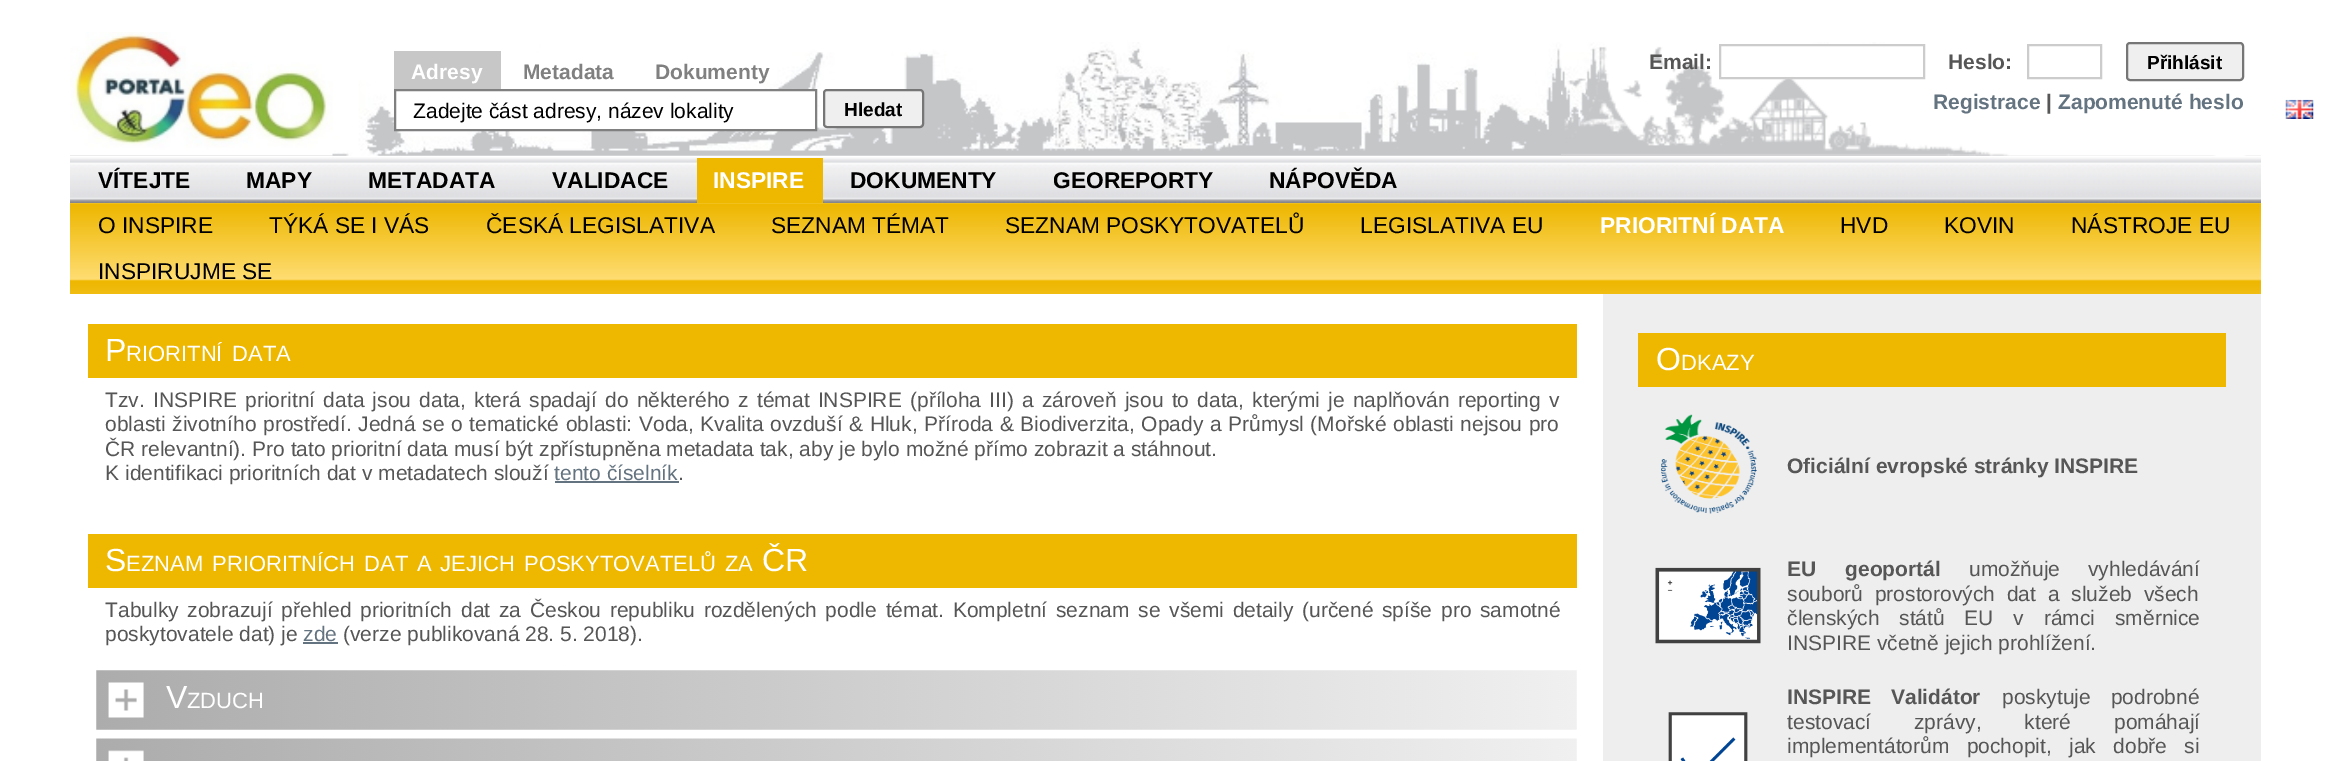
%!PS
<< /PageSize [2330 761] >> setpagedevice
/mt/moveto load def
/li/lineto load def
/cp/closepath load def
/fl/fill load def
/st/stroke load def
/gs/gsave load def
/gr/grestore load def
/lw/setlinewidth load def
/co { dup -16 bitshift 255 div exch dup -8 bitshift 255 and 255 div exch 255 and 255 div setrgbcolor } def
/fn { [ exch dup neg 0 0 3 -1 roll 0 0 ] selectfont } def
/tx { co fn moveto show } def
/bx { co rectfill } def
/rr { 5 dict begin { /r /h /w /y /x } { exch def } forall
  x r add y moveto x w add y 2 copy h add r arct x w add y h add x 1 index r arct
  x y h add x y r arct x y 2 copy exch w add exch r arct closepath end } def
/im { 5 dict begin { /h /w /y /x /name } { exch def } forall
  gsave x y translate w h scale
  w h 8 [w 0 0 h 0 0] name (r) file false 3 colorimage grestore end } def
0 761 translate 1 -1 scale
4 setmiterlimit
0 0 2330 761 16#FFFFFF bx
(media/1.raw) 70 42 2191 114 im
(media/2.raw) 70 32 263 124 im
394 51 107 38 16#C6C7C6 bx
16#FFFFFF co
395 90 mt 816 90 li 816 130 li 395 130 li cp gs fl gr
16#808080 co
2 lw
st
16#EFEFEF co
824 90 99 37 3 rr gs fl gr
16#767676 co
st
(media/3.raw) 1561 44 700 112 im
1786 76 5 1 16#FFFFFF bx
16#CCCCCC co
1720 45 204 33 rectstroke
2028 45 73 33 rectstroke
16#EFEFEF co
2127 43 116 37 3 rr gs fl gr
16#767676 co
st
(media/4.raw) 2285 99 29 20 im
(media/5.raw) 70 157 2191 46 im
697 158 126 45 16#EEB700 bx
(media/6.raw) 70 203 2191 91 im
88 324 1489 54 16#EEB700 bx
555 481 124 2 16#647380 bx
88 534 1489 54 16#EEB700 bx
303 642 35 2 16#647380 bx
(media/7.raw) 96 670 1481 60 im
(media/8.raw) 96 738 1481 23 im
1603 294 658 467 16#EEEEEE bx
1638 333 588 54 16#EEB700 bx
(media/9.raw) 1661 414 96 100 im
(media/10.raw) 1655 567 106 77 im
(media/11.raw) 1668 712 80 49 im
(Adresy) 411 79 /LiberationSans-Bold 21 16#FFFFFF tx
(Metadata) 523 79 /LiberationSans-Bold 21 16#808080 tx
(Dokumenty) 655 79 /LiberationSans-Bold 21 16#808080 tx
(Zadejte část adresy, název lokality) 413 118 /LiberationSans-Regular 21 16#000000 tx
(Hledat) 844 116 /LiberationSans-Bold 19 16#000000 tx
(Email:) 1649 69 /LiberationSans-Bold 21 16#565656 tx
(Heslo:) 1948 69 /LiberationSans-Bold 21 16#565656 tx
(Přihlásit) 2147 69 /LiberationSans-Bold 19 16#000000 tx
(Registrace) 1933 109 /LiberationSans-Bold 21 16#647380 tx
(|) 2046 109 /LiberationSans-Bold 21 16#565656 tx
(Zapomenuté heslo) 2058 109 /LiberationSans-Bold 21 16#647380 tx
(VÍTEJTE) 98 188 /LiberationSans-Bold 22.75 16#000000 tx
(MAPY) 246 188 /LiberationSans-Bold 22.75 16#000000 tx
(METADATA) 368 188 /LiberationSans-Bold 22.75 16#000000 tx
(VALIDACE) 552 188 /LiberationSans-Bold 22.75 16#000000 tx
(INSPIRE) 713 188 /LiberationSans-Bold 22.75 16#FFFFFF tx
(DOKUMENTY) 850 188 /LiberationSans-Bold 22.75 16#000000 tx
(GEOREPORTY) 1053 188 /LiberationSans-Bold 22.75 16#000000 tx
(NÁPOVĚDA) 1269 188 /LiberationSans-Bold 22.75 16#000000 tx
(O INSPIRE) 98 233 /LiberationSans-Regular 22.75 16#000000 tx
(TÝKÁ SE I VÁS) 269 233 /LiberationSans-Regular 22.75 16#000000 tx
(ČESKÁ LEGISLATIVA) 486 233 /LiberationSans-Regular 22.75 16#000000 tx
(SEZNAM TÉMAT) 771 233 /LiberationSans-Regular 22.75 16#000000 tx
(SEZNAM POSKYTOVATELŮ) 1005 233 /LiberationSans-Regular 22.75 16#000000 tx
(LEGISLATIVA EU) 1360 233 /LiberationSans-Regular 22.75 16#000000 tx
(PRIORITNÍ DATA) 1600 233 /LiberationSans-Bold 22.75 16#FFFFFF tx
(HVD) 1840 233 /LiberationSans-Regular 22.75 16#000000 tx
(KOVIN) 1944 233 /LiberationSans-Regular 22.75 16#000000 tx
(NÁSTROJE EU) 2071 233 /LiberationSans-Regular 22.75 16#000000 tx
(INSPIRUJME SE) 98 279 /LiberationSans-Regular 22.75 16#000000 tx
(P) 105 361 /LiberationSans-Regular 32 16#FFFFFF tx
(RIORITNÍ) 126 361 /LiberationSans-Regular 22 16#FFFFFF tx
(DATA) 232 361 /LiberationSans-Regular 22 16#FFFFFF tx
/LiberationSans-Regular 21 fn
16#565656 co
105 407 mt 2.4 0 32 (Tzv. INSPIRE prioritní data jsou data, která spadají do některého z témat INSPIRE \(příloha III\) a zároveň jsou to data, kterými je naplňován reporting v) widthshow
105 431 mt .8 0 32 (oblasti životního prostředí. Jedná se o tematické oblasti: Voda, Kvalita ovzduší & Hluk, Příroda & Biodiverzita, Opady a Průmysl \(Mořské oblasti nejsou pro) widthshow
(ČR relevantní\). Pro tato prioritní data musí být zpřístupněna metadata tak, aby je bylo možné přímo zobrazit a stáhnout.) 105 456 /LiberationSans-Regular 21 16#565656 tx
(K identifikaci prioritních dat v metadatech slouží) 105 480 /LiberationSans-Regular 21 16#565656 tx
(tento číselník) 554 480 /LiberationSans-Regular 21 16#647380 tx
(.) 678 480 /LiberationSans-Regular 21 16#565656 tx
(S) 105 571 /LiberationSans-Regular 32 16#FFFFFF tx
(EZNAM) 126 571 /LiberationSans-Regular 22 16#FFFFFF tx
(PRIORITNÍCH) 212 571 /LiberationSans-Regular 22 16#FFFFFF tx
(DAT) 364 571 /LiberationSans-Regular 22 16#FFFFFF tx
(A) 417 571 /LiberationSans-Regular 22 16#FFFFFF tx
(JEJICH) 440 571 /LiberationSans-Regular 22 16#FFFFFF tx
(POSKYTOVATELŮ) 524 571 /LiberationSans-Regular 22 16#FFFFFF tx
(ZA) 725 571 /LiberationSans-Regular 22 16#FFFFFF tx
(ČR) 762 571 /LiberationSans-Regular 32 16#FFFFFF tx
/LiberationSans-Regular 21 fn
16#565656 co
105 617 mt 2.9 0 32 (Tabulky zobrazují přehled prioritních dat za Českou republiku rozdělených podle témat. Kompletní seznam se všemi detaily \(určené spíše pro samotné) widthshow
(poskytovatele dat\) je) 105 641 /LiberationSans-Regular 21 16#565656 tx
(zde) 303 641 /LiberationSans-Regular 21 16#647380 tx
(\(verze publikovaná 28. 5. 2018\).) 343 641 /LiberationSans-Regular 21 16#565656 tx
(V) 166 708 /LiberationSans-Regular 32 16#FFFFFF tx
(ZDUCH) 187 708 /LiberationSans-Regular 22 16#FFFFFF tx
(O) 1656 370 /LiberationSans-Regular 32 16#FFFFFF tx
(DKAZY) 1681 370 /LiberationSans-Regular 22 16#FFFFFF tx
(Oficiální evropské stránky INSPIRE) 1787 473 /LiberationSans-Bold 21 16#565656 tx
(EU) 1787 576 /LiberationSans-Bold 21 16#565656 tx
(geoportál) 1845 576 /LiberationSans-Bold 21 16#565656 tx
/LiberationSans-Regular 21 fn
1969 576 mt 22 0 32 (umožňuje vyhledávání) widthshow
1787 601 mt 6 0 32 (souborů prostorových dat a služeb všech) widthshow
1787 625 mt 14 0 32 (členských států EU v rámci směrnice) widthshow
(INSPIRE včetně jejich prohlížení.) 1787 650 /LiberationSans-Regular 21 16#565656 tx
/LiberationSans-Bold 21 fn
1787 704 mt 14 0 32 (INSPIRE Validátor) widthshow
/LiberationSans-Regular 21 fn
2002 704 mt 14 0 32 (poskytuje podrobné) widthshow
1787 729 mt 37 0 32 (testovací zprávy, které pomáhají) widthshow
1787 753 mt 11.5 0 32 (implementátorům pochopit, jak dobře si) widthshow
showpage
